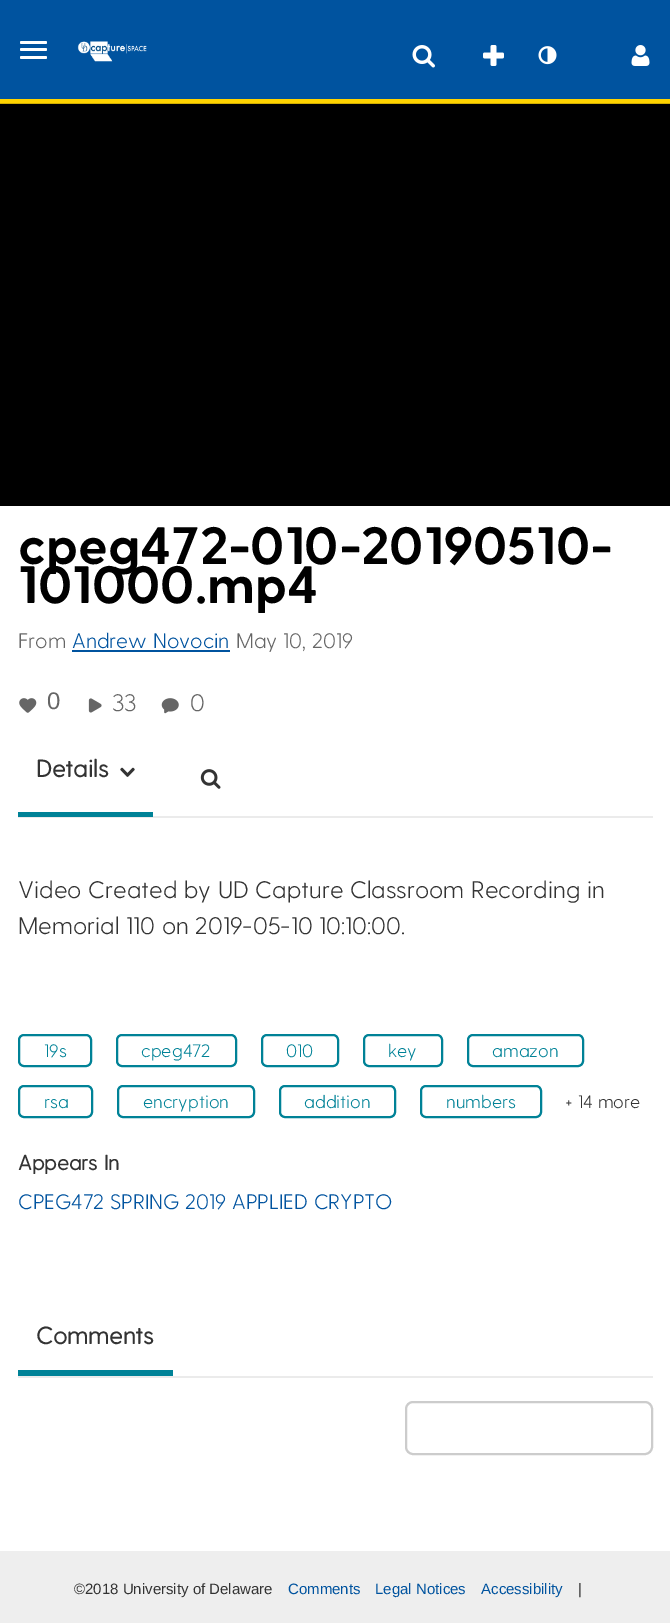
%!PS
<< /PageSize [670 1623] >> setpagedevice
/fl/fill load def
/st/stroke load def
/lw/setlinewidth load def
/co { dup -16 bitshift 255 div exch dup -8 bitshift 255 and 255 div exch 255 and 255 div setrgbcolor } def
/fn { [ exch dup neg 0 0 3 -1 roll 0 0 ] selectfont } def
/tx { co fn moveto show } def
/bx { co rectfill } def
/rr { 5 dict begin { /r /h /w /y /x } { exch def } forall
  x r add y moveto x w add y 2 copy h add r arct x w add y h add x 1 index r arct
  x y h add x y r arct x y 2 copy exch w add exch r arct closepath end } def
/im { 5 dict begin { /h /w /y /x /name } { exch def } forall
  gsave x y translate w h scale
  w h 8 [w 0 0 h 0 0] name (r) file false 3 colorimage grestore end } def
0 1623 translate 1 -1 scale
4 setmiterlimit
0 0 670 1623 16#FFFFFF bx
0 99 670 4 16#FFD300 bx
0 0 670 99 16#00539F bx
16#FFFFFF co
20 41 27 3 1.5 rr fl
20 48 27 3 1.5 rr fl
20 56 27 3 1.5 rr fl
(media/1.raw) 77 41 70 21 im
(media/2.raw) 412 45 23 23 im
(media/3.raw) 483 45 21 21 im
(media/4.raw) 538 46 19 19 im
(media/5.raw) 631 45 19 21 im
0 104 670 402 16#000000 bx
0 103 670 1 16#D1AD00 bx
72 650 158 2 16#00539F bx
(media/6.raw) 19 698 18 15 im
(media/7.raw) 88 698 14 15 im
(media/8.raw) 161 698 18 16 im
18 816 635 2 16#EBEBEB bx
18 812 135 5 16#008297 bx
(media/9.raw) 120 767 15 10 im
(media/10.raw) 200 769 21 20 im
2 lw
19 1035 72 31 5 rr st
117 1035 119 31 5 rr st
262 1035 76 31 5 rr st
364 1035 78 31 5 rr st
468 1035 115 31 5 rr st
19 1086 73 31 5 rr st
118 1086 136 31 5 rr st
280 1086 115 31 5 rr st
421 1086 120 31 5 rr st
18 1376 635 2 16#EBEBEB bx
18 1370 155 6 16#008297 bx
16#CCCCCC co
406 1402 246 52 7 rr st
0 1551 670 72 16#EEEEEE bx
(cpeg472-010-20190510-) 18 564 /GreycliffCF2-Bold 52.5 16#000000 tx
(101000.mp4) 18 603 /GreycliffCF2-Bold 52.5 16#000000 tx
(From) 18 648 /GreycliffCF-Light 21 16#666666 tx
(Andrew Novocin) 72 648 /GreycliffCF-Light 21 16#00539F tx
(May 10, 2019) 236 648 /GreycliffCF-Light 21 16#666666 tx
(0) 47 709 /LiberationSans-Regular 24 16#666666 tx
(33) 112 711 /GreycliffCF-Light 24 16#666666 tx
(0) 190 711 /GreycliffCF-Light 24 16#666666 tx
(Details) 36 777 /GreycliffCF-Bold 24 16#333333 tx
(Video Created by UD Capture Classroom Recording in) 18 898 /GreycliffCF-Light 24 16#333333 tx
(Memorial 110 on 2019-05-10 10:10:00.) 18 934 /GreycliffCF-Light 24 16#333333 tx
(19s) 44 1057 /GreycliffCF-Light 18 16#008297 tx
(cpeg472) 141 1057 /GreycliffCF-Light 18 16#008297 tx
(010) 286 1057 /GreycliffCF-Light 18 16#008297 tx
(key) 388 1057 /GreycliffCF-Light 18 16#008297 tx
(amazon) 492 1057 /GreycliffCF-Light 18 16#008297 tx
(rsa) 44 1108 /GreycliffCF-Light 18 16#008297 tx
(encryption) 143 1108 /GreycliffCF-Light 18 16#008297 tx
(addition) 304 1108 /GreycliffCF-Light 18 16#008297 tx
(numbers) 446 1108 /GreycliffCF-Light 18 16#008297 tx
(+ 14 more) 565 1108 /GreycliffCF-Light 18 16#333333 tx
(Appears In) 18 1170 /GreycliffCF-Bold 21 16#333333 tx
(CPEG472 SPRING 2019 APPLIED CRYPTO) 18 1209 /GreycliffCF-Light 21 16#00539F tx
(Comments) 36 1344 /GreycliffCF-Bold 24 16#333333 tx
(©2018 University of Delaware) 74 1594 /LiberationSans-Regular 15 16#333333 tx
(Comments) 288 1594 /LiberationSans-Regular 15 16#00539F tx
(Legal Notices) 375 1594 /LiberationSans-Regular 15 16#00539F tx
(Accessibility) 481 1594 /LiberationSans-Regular 15 16#00539F tx
(|) 578 1594 /LiberationSans-Regular 15 16#333333 tx
showpage
